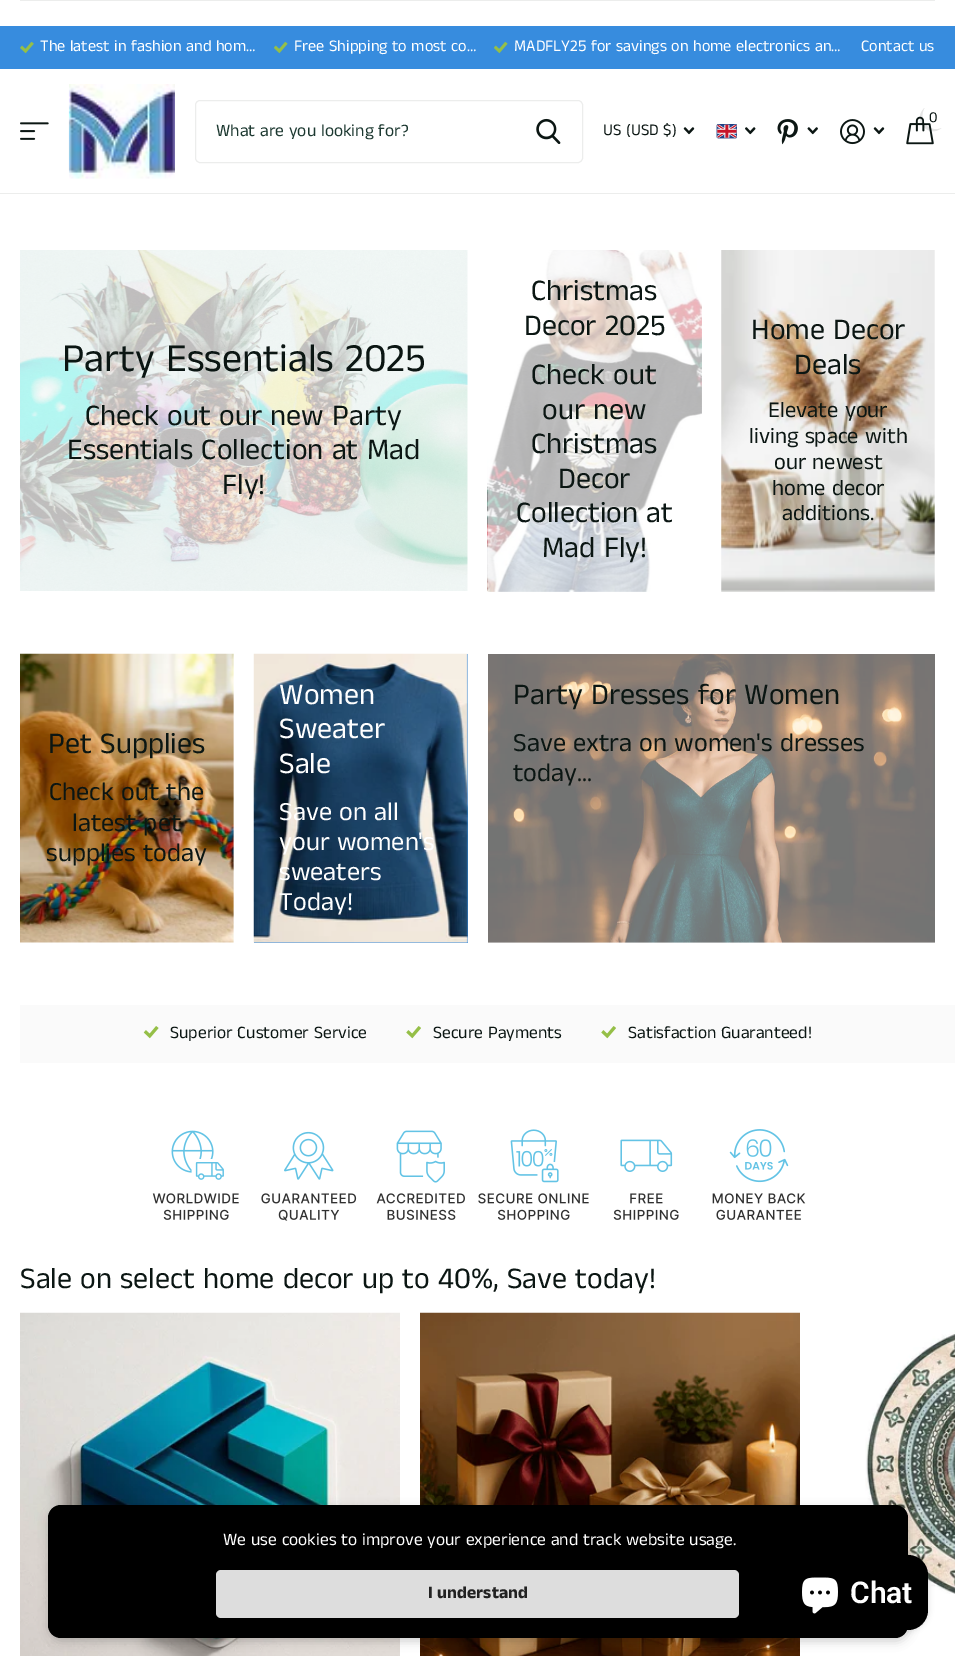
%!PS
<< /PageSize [955 1656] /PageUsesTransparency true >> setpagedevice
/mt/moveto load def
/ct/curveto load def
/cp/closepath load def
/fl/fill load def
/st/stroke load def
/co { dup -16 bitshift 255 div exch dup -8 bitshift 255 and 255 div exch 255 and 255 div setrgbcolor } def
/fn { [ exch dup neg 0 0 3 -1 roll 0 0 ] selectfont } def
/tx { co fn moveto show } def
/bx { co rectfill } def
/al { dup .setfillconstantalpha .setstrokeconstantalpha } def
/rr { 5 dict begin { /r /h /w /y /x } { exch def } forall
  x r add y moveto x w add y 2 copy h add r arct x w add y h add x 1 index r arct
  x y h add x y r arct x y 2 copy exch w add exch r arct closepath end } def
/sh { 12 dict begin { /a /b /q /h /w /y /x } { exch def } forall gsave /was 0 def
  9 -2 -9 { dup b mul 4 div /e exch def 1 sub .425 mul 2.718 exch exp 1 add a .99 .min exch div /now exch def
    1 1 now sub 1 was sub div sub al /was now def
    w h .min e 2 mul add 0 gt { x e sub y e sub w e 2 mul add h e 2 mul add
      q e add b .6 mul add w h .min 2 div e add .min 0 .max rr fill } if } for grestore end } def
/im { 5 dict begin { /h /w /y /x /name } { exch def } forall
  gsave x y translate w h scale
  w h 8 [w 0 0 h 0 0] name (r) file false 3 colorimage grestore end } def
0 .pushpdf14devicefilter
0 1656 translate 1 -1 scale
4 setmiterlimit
0 0 955 1656 16#FFFFFF bx
20 0 915 1 16#ECEDEC bx
0 26 955 43 16#378CDE bx
(media/1.raw) 20 41 14 13 im
(media/2.raw) 274 41 14 13 im
(media/2.raw) 494 41 14 13 im
(media/3.raw) 20 122 29 18 im
(media/4.raw) 68 84 107 95 im
16#ECEDEC co
195.5 100.5 387 62 4.5 rr st
(media/5.raw) 536 118 25 26 im
(media/6.raw) 906 116 28 29 im
0.1 al
16#000000 co
941.5 128 mt 929.5 133.5 917.5 120 924.5 108 ct 911.5 119.5 928.5 139 941.5 128 ct cp fl
1 al
(media/7.raw) 683 127 12 8 im
(media/8.raw) 716 124 21 15 im
(media/9.raw) 745 127 11 8 im
(media/10.raw) 777 119 21 26 im
(media/11.raw) 807 127 11 8 im
(media/12.raw) 840 119 25 26 im
(media/7.raw) 873 127 12 8 im
0 193 955 1 16#ECEDEC bx
(media/13.raw) 20 250 448 341 im
(media/14.raw) 487 250 215 342 im
(media/15.raw) 721 250 214 342 im
(media/16.raw) 20 653 214 290 im
254 654 214 289 16#378CDE bx
(media/17.raw) 253 653 215 290 im
(media/18.raw) 488 654 447 289 im
20 1005 935 58 16#FAFAFA bx
(media/19.raw) 143 1026 16 13 im
(media/20.raw) 406 1026 15 13 im
(media/20.raw) 601 1026 15 13 im
(media/21.raw) 152 1130 87 90 im
(media/22.raw) 261 1131 96 90 im
(media/23.raw) 376 1130 89 90 im
(media/24.raw) 478 1129 111 91 im
(media/25.raw) 613 1139 66 81 im
(media/26.raw) 712 1129 94 91 im
(media/27.raw) 20 1312 380 344 im
(media/28.raw) 420 1312 380 344 im
(media/29.raw) 865 1330 90 264 im
16#000000 co
49 1509 860 132 13 5 .2 sh
48 1505 860 133 13 rr fl
16#DDDDDD co
216 1570 523 48 5 rr fl
16#000000 co
786 1555 142 75 20 3 .15 sh
786 1555 142 75 20 rr fl
(media/30.raw) 802 1577 36 37 im
(The latest in fashion and hom…) 40 51 /AnekTamil-Regular 16.25 16#FFFFFF tx
(Free Shipping to most co…) 294 51 /AnekTamil-Regular 16.25 16#FFFFFF tx
(MADFLY25 for savings on home electronics an…) 514 51 /AnekTamil-Regular 16.25 16#FFFFFF tx
(Contact us) 861 51 /AnekTamil-Regular 16.25 16#FFFFFF tx
(What are you looking for?) 216 136 /AnekTamil-Regular 17.5 16#1C3830 tx
(0) 929 122 /AnekTamil-Regular 15 16#0B1613 tx
(US \(USD $\)) 603 135 /AnekTamil-Regular 16.25 16#0B1613 tx
(Party Essentials 2025) 62 371 /AnekTamil-Regular 40 16#0B1613 tx
(Check out our new Party) 85 425 /AnekTamil-Regular 30 16#0B1613 tx
(Essentials Collection at Mad) 67 459 /AnekTamil-Regular 30 16#0B1613 tx
(Fly!) 222 494 /AnekTamil-Regular 30 16#0B1613 tx
(Christmas) 531 300 /AnekTamil-Regular 30 16#0B1613 tx
(Decor 2025) 524 335 /AnekTamil-Regular 30 16#0B1613 tx
(Check out) 531 384 /AnekTamil-Regular 30 16#0B1613 tx
(our new) 542 419 /AnekTamil-Regular 30 16#0B1613 tx
(Christmas) 531 453 /AnekTamil-Regular 30 16#0B1613 tx
(Decor) 558 488 /AnekTamil-Regular 30 16#0B1613 tx
(Collection at) 516 522 /AnekTamil-Regular 30 16#0B1613 tx
(Mad Fly!) 542 557 /AnekTamil-Regular 30 16#0B1613 tx
(Home Decor) 751 339 /AnekTamil-Regular 30 16#0B1613 tx
(Deals) 794 374 /AnekTamil-Regular 30 16#0B1613 tx
(Elevate your) 768 417 /AnekTamil-Regular 22.5 16#0B1613 tx
(living space with) 749 443 /AnekTamil-Regular 22.5 16#0B1613 tx
(our newest) 774 469 /AnekTamil-Regular 22.5 16#0B1613 tx
(home decor) 772 495 /AnekTamil-Regular 22.5 16#0B1613 tx
(additions.) 782 520 /AnekTamil-Regular 22.5 16#0B1613 tx
(Pet Supplies) 48 753 /AnekTamil-Regular 30 16#0B1613 tx
(Check out the) 49 800 /AnekTamil-Regular 26.25 16#0B1613 tx
(latest pet) 72 831 /AnekTamil-Regular 26.25 16#0B1613 tx
(supplies today) 46 861 /AnekTamil-Regular 26.25 16#0B1613 tx
(Women) 279 704 /AnekTamil-Regular 30 16#FFFFFF tx
(Sweater) 279 738 /AnekTamil-Regular 30 16#FFFFFF tx
(Sale) 279 773 /AnekTamil-Regular 30 16#FFFFFF tx
(Save on all) 279 820 /AnekTamil-Regular 26.25 16#FFFFFF tx
(your women's) 279 850 /AnekTamil-Regular 26.25 16#FFFFFF tx
(sweaters) 279 880 /AnekTamil-Regular 26.25 16#FFFFFF tx
(Today!) 279 910 /AnekTamil-Regular 26.25 16#FFFFFF tx
(Party Dresses for Women) 513 704 /AnekTamil-Regular 30 16#0B1613 tx
(Save extra on women's dresses) 513 751 /AnekTamil-Regular 26.25 16#0B1613 tx
(today...) 513 781 /AnekTamil-Regular 26.25 16#0B1613 tx
(Superior Customer Service) 170 1038 /AnekTamil-Regular 17.5 16#0B1613 tx
(Secure Payments) 433 1038 /AnekTamil-Regular 17.5 16#0B1613 tx
(Satisfaction Guaranteed!) 628 1038 /AnekTamil-Regular 17.5 16#0B1613 tx
(Sale on select home decor up to 40%, Save today!) 20 1288 /AnekTamil-Regular 30 16#0B1613 tx
(We use cookies to improve your experience and track website usage.) 223 1545 /AnekTamil-Regular 17.5 16#FFFFFF tx
(I understand) 428 1598 /AnekTamil-Bold 17.5 16#222222 tx
(Chat) 850 1603 /Roboto-SemiBold 30 16#FFFFFF tx
.poppdf14devicefilter showpage
